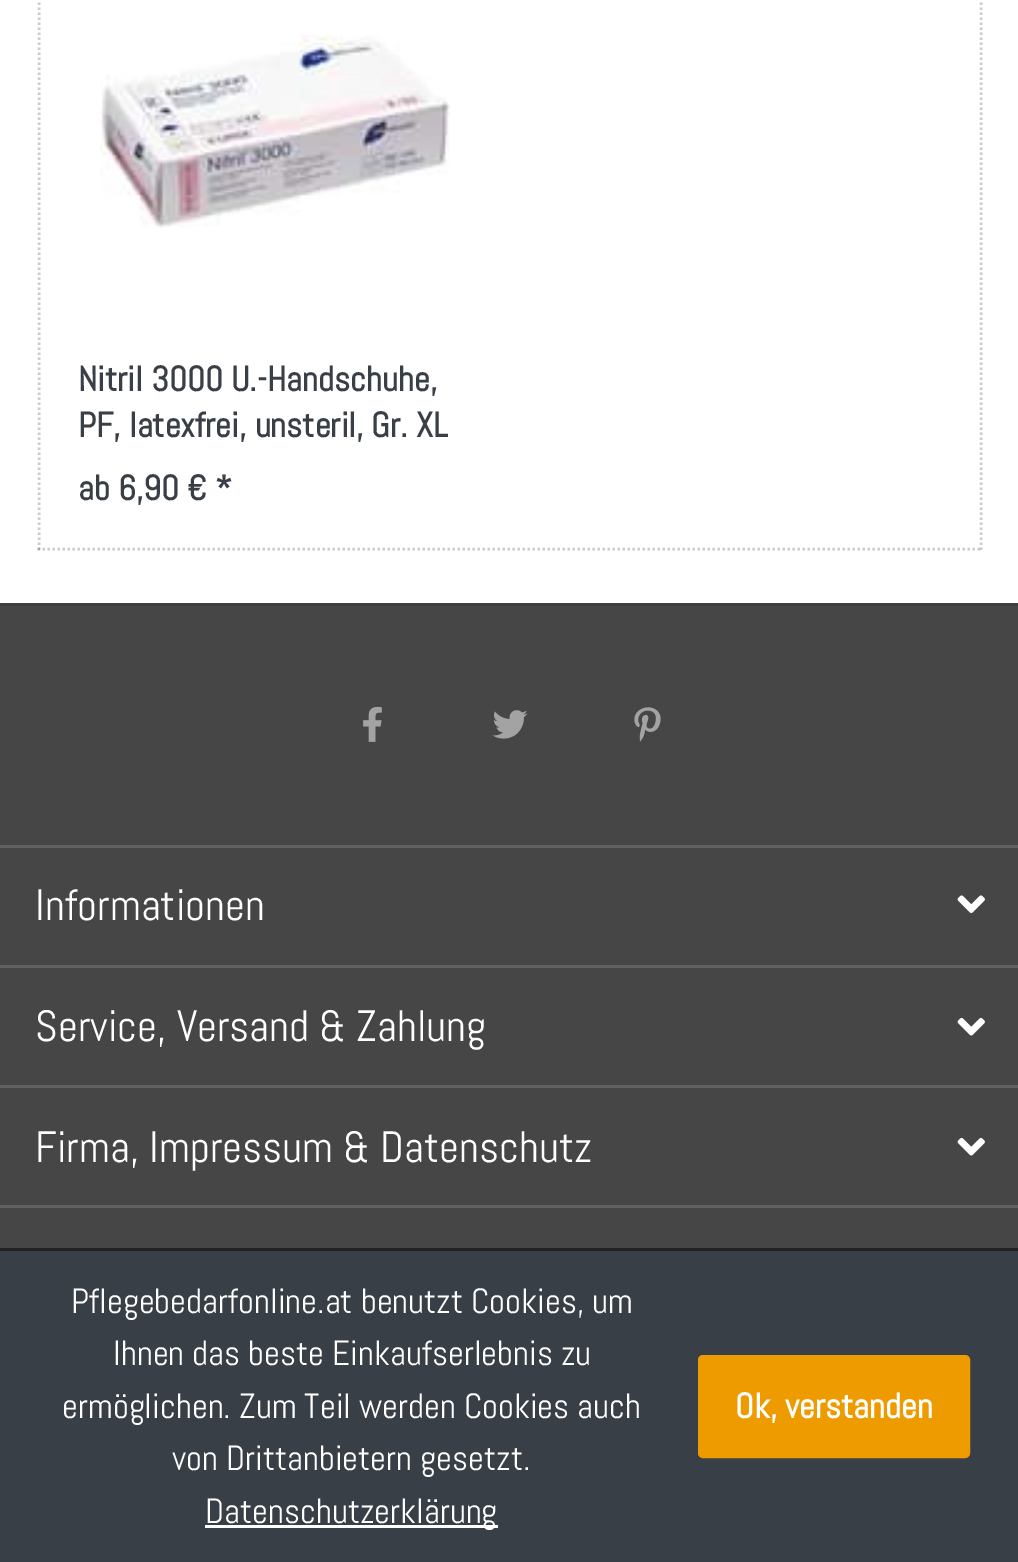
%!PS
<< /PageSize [1018 1562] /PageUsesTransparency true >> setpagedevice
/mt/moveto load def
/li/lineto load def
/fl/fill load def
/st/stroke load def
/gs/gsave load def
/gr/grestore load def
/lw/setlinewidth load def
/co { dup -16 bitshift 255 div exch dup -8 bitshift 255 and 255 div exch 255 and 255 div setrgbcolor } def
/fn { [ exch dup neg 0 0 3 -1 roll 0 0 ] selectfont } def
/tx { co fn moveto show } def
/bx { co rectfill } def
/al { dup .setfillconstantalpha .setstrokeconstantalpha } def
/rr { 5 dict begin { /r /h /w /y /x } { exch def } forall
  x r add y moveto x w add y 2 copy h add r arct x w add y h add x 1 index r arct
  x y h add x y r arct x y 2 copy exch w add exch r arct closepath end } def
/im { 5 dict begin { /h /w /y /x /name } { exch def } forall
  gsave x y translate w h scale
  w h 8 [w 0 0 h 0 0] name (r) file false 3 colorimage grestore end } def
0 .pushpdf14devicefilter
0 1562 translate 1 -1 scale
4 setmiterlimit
0 0 1018 1562 16#FFFFFF bx
16#CCCCCC co
2.5 lw
[2.5 2.5] 0 setdash
981 -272.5 mt 981 550 li st
0.2 al
16#000000 co
37.5 549 mt 982.5 549 li st
39 -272.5 mt 39 550 li st
1 al
(media/1.raw) 100 35 350 193 im
0 606 1018 642 16#464646 bx
0 603 1018 3 16#3F3F3F bx
(media/2.raw) 363 706 19 36 im
(media/3.raw) 492 710 36 29 im
(media/4.raw) 634 707 27 35 im
0 845 1018 3 16#606060 bx
0 965 1018 3 16#606060 bx
(media/5.raw) 957 895 28 18 im
0 1085 1018 3 16#606060 bx
(media/6.raw) 957 1017 28 19 im
0 1205 1018 3 16#606060 bx
(media/6.raw) 957 1137 28 19 im
0 1251 1018 311 16#393F46 bx
0 1248 1018 3 16#222222 bx
205 1525 293 3 16#FFFFFF bx
16#EE9B00 co
699.5 1356.5 269 100 3.5 rr gs fl gr
3 lw
[] 0 setdash
st
(Nitril 3000 U.-Handschuhe,) 78 391 /Abel-Bold 35 16#393F46 tx
(PF, latexfrei, unsteril, Gr. XL) 78 437 /Abel-Bold 35 16#393F46 tx
(ab 6,90 € *) 78 500 /Abel-Bold 35 16#393F46 tx
(Informationen) 35 920 /Abel-Regular 43.75 16#FFFFFF tx
(Service, Versand & Zahlung) 35 1041 /Abel-Regular 43.75 16#FFFFFF tx
(Firma, Impressum & Datenschutz) 35 1162 /Abel-Regular 43.75 16#FFFFFF tx
(Pflegebedarfonline.at benutzt Cookies, um) 71 1313 /Abel-Regular 35 16#FFFFFF tx
(Ihnen das beste Einkaufserlebnis zu) 113 1365 /Abel-Regular 35 16#FFFFFF tx
(ermöglichen. Zum Teil werden Cookies auch) 62 1418 /Abel-Regular 35 16#FFFFFF tx
(von Drittanbietern gesetzt.) 172 1470 /Abel-Regular 35 16#FFFFFF tx
(Datenschutzerklärung) 205 1523 /Abel-Regular 35 16#FFFFFF tx
(Ok, verstanden) 735 1418 /Abel-Bold 35 16#FFFFFF tx
.poppdf14devicefilter showpage
